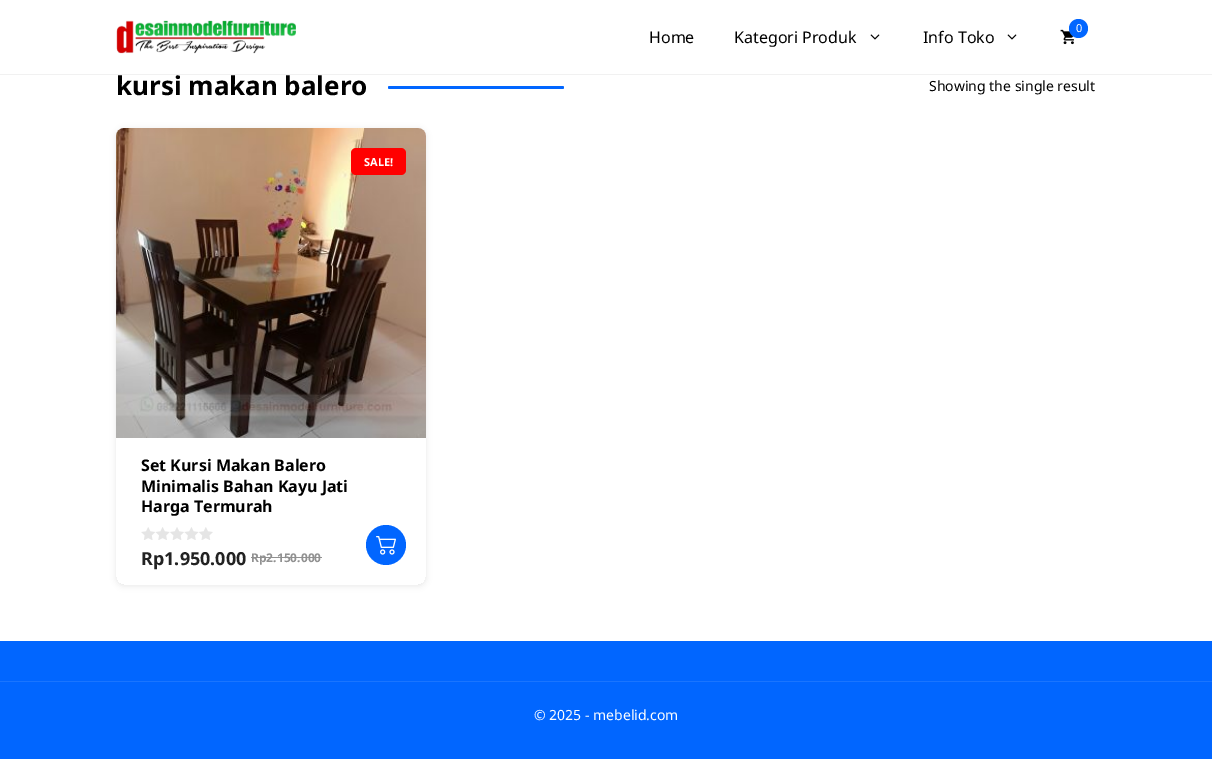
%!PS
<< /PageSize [1212 759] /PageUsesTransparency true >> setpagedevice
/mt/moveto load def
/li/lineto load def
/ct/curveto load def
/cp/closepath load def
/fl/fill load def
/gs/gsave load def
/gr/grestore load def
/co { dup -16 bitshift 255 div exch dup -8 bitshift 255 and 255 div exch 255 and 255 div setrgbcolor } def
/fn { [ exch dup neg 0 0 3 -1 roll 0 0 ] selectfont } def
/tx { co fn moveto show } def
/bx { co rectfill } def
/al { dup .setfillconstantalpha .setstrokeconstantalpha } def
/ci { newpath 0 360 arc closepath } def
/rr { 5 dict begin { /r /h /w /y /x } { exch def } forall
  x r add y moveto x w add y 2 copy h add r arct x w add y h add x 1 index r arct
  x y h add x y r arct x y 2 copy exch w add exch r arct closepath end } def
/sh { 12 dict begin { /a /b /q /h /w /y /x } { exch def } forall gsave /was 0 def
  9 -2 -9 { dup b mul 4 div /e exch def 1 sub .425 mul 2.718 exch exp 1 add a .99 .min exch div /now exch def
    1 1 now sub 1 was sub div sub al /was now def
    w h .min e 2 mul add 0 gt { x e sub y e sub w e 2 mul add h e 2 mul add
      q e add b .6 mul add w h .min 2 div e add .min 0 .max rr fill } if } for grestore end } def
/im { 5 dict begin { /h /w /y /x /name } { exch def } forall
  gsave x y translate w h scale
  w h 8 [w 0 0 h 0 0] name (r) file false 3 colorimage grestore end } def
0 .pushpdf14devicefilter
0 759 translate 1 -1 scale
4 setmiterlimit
0 0 1212 759 16#FFFFFF bx
0 74 1212 1 16#F1F1F1 bx
(media/1.raw) 116 20 180 34 im
(media/2.raw) 1060 29 14 16 im
16#0166FF co
1078.5 28.5 9.5 ci fl
(media/3.raw) 870 34 10 6 im
(media/3.raw) 1007 34 10 6 im
388 86 176 3 1.5 rr fl
gs
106 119 mt 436 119 li 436 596 li 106 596 li cp 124 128 mt 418 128 li 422.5 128 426 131.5 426 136 ct 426 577 li 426 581.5 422.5 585 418 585 ct 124 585 li 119.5 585 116 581.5 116 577 ct 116 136 li 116 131.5 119.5 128 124 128 ct cp eoclip newpath
16#000000 co
116 129 310 457 8 3 .09 sh
gr
(media/4.raw) 116 128 310 310 im
16#FF0000 co
351 148 55 27 5 rr fl
(media/5.raw) 141 527 72 13 im
251 557 71 1 16#919191 bx
16#0166FF co
386 545 20 ci fl
(media/6.raw) 376 536 20 19 im
0 641 1212 118 16#0166FF bx
0 681 1212 1 16#1A75FF bx
(0) 1076 32 /NotoSans-Regular 11 16#FFFFFF tx
(Home) 649 43 /NotoSans-Regular 16 16#000000 tx
(Kategori Produk) 734 43 /NotoSans-Regular 16 16#000000 tx
(Info Toko) 923 43 /NotoSans-Regular 16 16#000000 tx
(kursi makan balero) 116 95 /NotoSans-Bold 26 16#000000 tx
(Showing the single result) 929 91 /NotoSans-Regular 14 16#000000 tx
(SALE!) 364 166 /NotoSans-Bold 11 16#FFFFFF tx
(Set Kursi Makan Balero) 141 471 /NotoSans-Bold 16 16#000000 tx
(Minimalis Bahan Kayu Jati) 141 492 /NotoSans-Bold 16 16#000000 tx
(Harga Termurah) 141 512 /NotoSans-Bold 16 16#000000 tx
(Rp1.950.000) 141 565 /NotoSans-Bold 18 16#222222 tx
(Rp2.150.000) 251 562 /NotoSans-Bold 12 16#919191 tx
(© 2025 - mebelid.com) 534 720 /NotoSans-Regular 14 16#FFFFFF tx
.poppdf14devicefilter showpage
